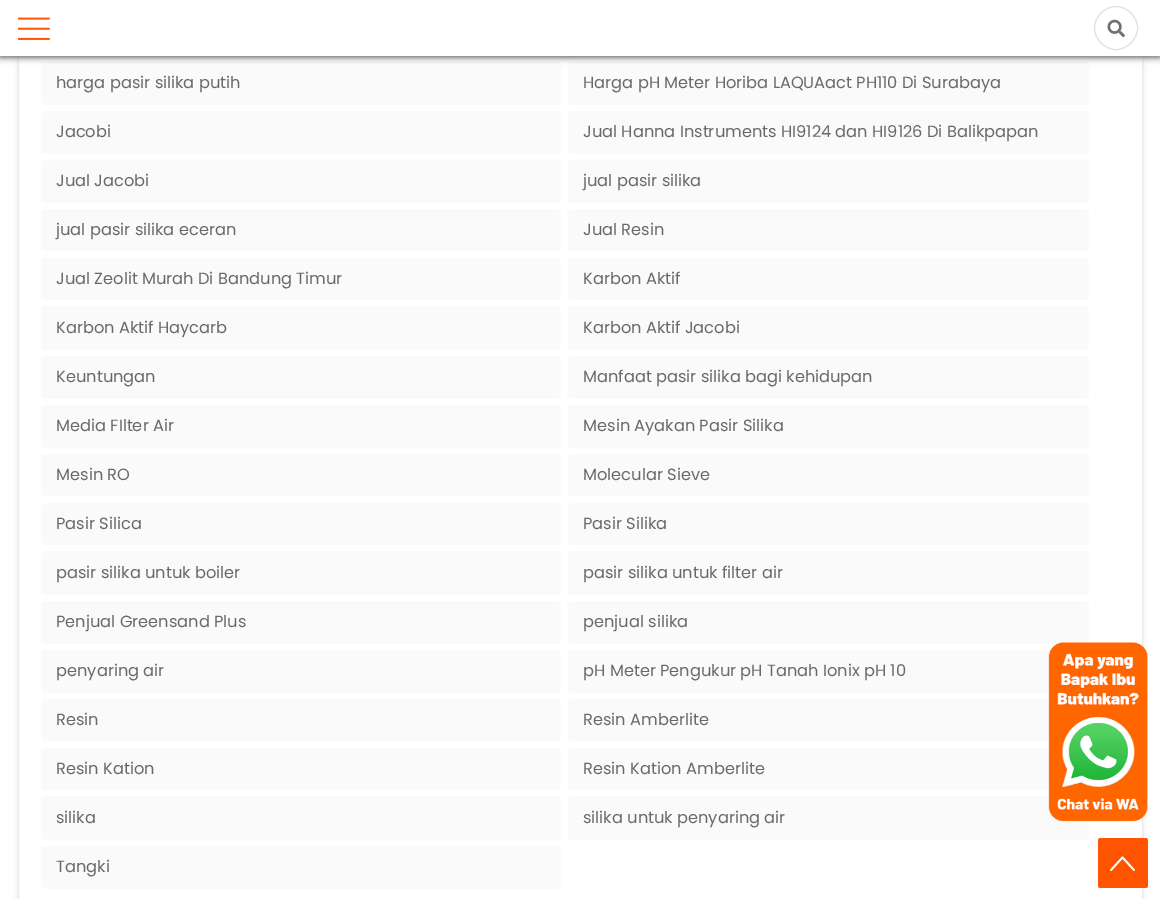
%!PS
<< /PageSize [1160 899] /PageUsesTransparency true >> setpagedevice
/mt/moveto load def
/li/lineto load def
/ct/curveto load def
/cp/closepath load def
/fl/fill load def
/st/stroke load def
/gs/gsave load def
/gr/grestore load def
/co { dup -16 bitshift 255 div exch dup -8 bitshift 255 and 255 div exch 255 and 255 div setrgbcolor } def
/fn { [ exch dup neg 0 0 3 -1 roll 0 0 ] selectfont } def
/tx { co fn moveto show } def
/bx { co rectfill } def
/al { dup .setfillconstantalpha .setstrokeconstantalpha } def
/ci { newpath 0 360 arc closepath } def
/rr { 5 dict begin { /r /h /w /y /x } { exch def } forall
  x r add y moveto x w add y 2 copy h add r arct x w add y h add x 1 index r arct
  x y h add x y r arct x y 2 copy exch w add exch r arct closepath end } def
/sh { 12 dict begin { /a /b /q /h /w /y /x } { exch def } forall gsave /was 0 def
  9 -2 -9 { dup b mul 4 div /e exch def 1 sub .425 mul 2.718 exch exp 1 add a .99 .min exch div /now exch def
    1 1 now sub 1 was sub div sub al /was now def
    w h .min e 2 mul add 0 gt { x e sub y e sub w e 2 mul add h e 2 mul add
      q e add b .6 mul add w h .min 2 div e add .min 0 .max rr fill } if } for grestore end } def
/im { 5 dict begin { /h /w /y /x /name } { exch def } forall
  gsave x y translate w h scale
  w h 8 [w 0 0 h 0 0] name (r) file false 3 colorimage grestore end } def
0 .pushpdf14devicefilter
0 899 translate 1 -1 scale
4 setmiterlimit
0 0 1160 899 16#FFFFFF bx
gs
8 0 mt 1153 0 li 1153 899 li 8 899 li cp 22 -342 mt 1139 -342 li 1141 -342 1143 -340 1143 -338 ct 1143 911 li 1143 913 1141 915 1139 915 ct 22 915 li 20 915 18 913 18 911 ct 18 -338 li 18 -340 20 -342 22 -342 ct cp eoclip newpath
16#000000 co
18 -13 1125 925 4 3 .1 sh
gr
16#EBEBEB co
18.5 -.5 1124 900 rectstroke
16#FAFAFA co
41 61 520 44 4 rr fl
568 61 521 44 4 rr fl
16#696969 co
0 1 1160 57 0 3 1 sh
0 0 1160 56 16#FFFFFF bx
(media/1.raw) 18 17 32 23 im
16#E0E0E0 co
1116 28 21.5 ci st
(media/2.raw) 1107 19 18 19 im
16#FAFAFA co
41 111 520 43 4 rr fl
568 111 521 43 4 rr fl
41 160 520 43 4 rr fl
568 160 521 43 4 rr fl
41 209 520 42 4 rr fl
568 209 521 42 4 rr fl
41 258 520 42 4 rr fl
568 258 521 42 4 rr fl
41 306 520 44 4 rr fl
568 306 521 44 4 rr fl
41 356 520 43 4 rr fl
568 356 521 43 4 rr fl
41 405 520 43 4 rr fl
568 405 521 43 4 rr fl
41 454 520 42 4 rr fl
568 454 521 42 4 rr fl
41 503 520 42 4 rr fl
568 503 521 42 4 rr fl
41 551 520 44 4 rr fl
568 551 521 44 4 rr fl
41 601 520 43 4 rr fl
568 601 521 43 4 rr fl
41 650 520 43 4 rr fl
568 650 521 43 4 rr fl
41 699 520 42 4 rr fl
568 699 521 42 4 rr fl
41 748 520 42 4 rr fl
568 748 521 42 4 rr fl
41 796 520 44 4 rr fl
568 796 521 44 4 rr fl
41 846 520 43 4 rr fl
(media/3.raw) 1048 642 100 180 im
16#FF5400 co
1098 838 50 50 2.5 rr fl
(media/4.raw) 1110 856 25 15 im
(harga pasir silika putih) 56 88 /Poppins-Regular 16.25 16#696969 tx
(Harga pH Meter Horiba LAQUAact PH110 Di Surabaya) 583 88 /Poppins-Regular 16.25 16#696969 tx
(Jacobi) 56 137 /Poppins-Regular 16.25 16#696969 tx
(Jual Hanna Instruments HI9124 dan HI9126 Di Balikpapan) 583 137 /Poppins-Regular 16.25 16#696969 tx
(Jual Jacobi) 56 186 /Poppins-Regular 16.25 16#696969 tx
(jual pasir silika) 583 186 /Poppins-Regular 16.25 16#696969 tx
(jual pasir silika eceran) 56 235 /Poppins-Regular 16.25 16#696969 tx
(Jual Resin) 583 235 /Poppins-Regular 16.25 16#696969 tx
(Jual Zeolit Murah Di Bandung Timur) 56 284 /Poppins-Regular 16.25 16#696969 tx
(Karbon Aktif) 583 284 /Poppins-Regular 16.25 16#696969 tx
(Karbon Aktif Haycarb) 56 333 /Poppins-Regular 16.25 16#696969 tx
(Karbon Aktif Jacobi) 583 333 /Poppins-Regular 16.25 16#696969 tx
(Keuntungan) 56 382 /Poppins-Regular 16.25 16#696969 tx
(Manfaat pasir silika bagi kehidupan) 583 382 /Poppins-Regular 16.25 16#696969 tx
(Media FIlter Air) 56 431 /Poppins-Regular 16.25 16#696969 tx
(Mesin Ayakan Pasir Silika) 583 431 /Poppins-Regular 16.25 16#696969 tx
(Mesin RO) 56 480 /Poppins-Regular 16.25 16#696969 tx
(Molecular Sieve) 583 480 /Poppins-Regular 16.25 16#696969 tx
(Pasir Silica) 56 529 /Poppins-Regular 16.25 16#696969 tx
(Pasir Silika) 583 529 /Poppins-Regular 16.25 16#696969 tx
(pasir silika untuk boiler) 56 578 /Poppins-Regular 16.25 16#696969 tx
(pasir silika untuk filter air) 583 578 /Poppins-Regular 16.25 16#696969 tx
(Penjual Greensand Plus) 56 627 /Poppins-Regular 16.25 16#696969 tx
(penjual silika) 583 627 /Poppins-Regular 16.25 16#696969 tx
(penyaring air) 56 676 /Poppins-Regular 16.25 16#696969 tx
(pH Meter Pengukur pH Tanah Ionix pH 10) 583 676 /Poppins-Regular 16.25 16#696969 tx
(Resin) 56 725 /Poppins-Regular 16.25 16#696969 tx
(Resin Amberlite) 583 725 /Poppins-Regular 16.25 16#696969 tx
(Resin Kation) 56 774 /Poppins-Regular 16.25 16#696969 tx
(Resin Kation Amberlite) 583 774 /Poppins-Regular 16.25 16#696969 tx
(silika) 56 823 /Poppins-Regular 16.25 16#696969 tx
(silika untuk penyaring air) 583 823 /Poppins-Regular 16.25 16#696969 tx
(Tangki) 56 872 /Poppins-Regular 16.25 16#696969 tx
.poppdf14devicefilter showpage
